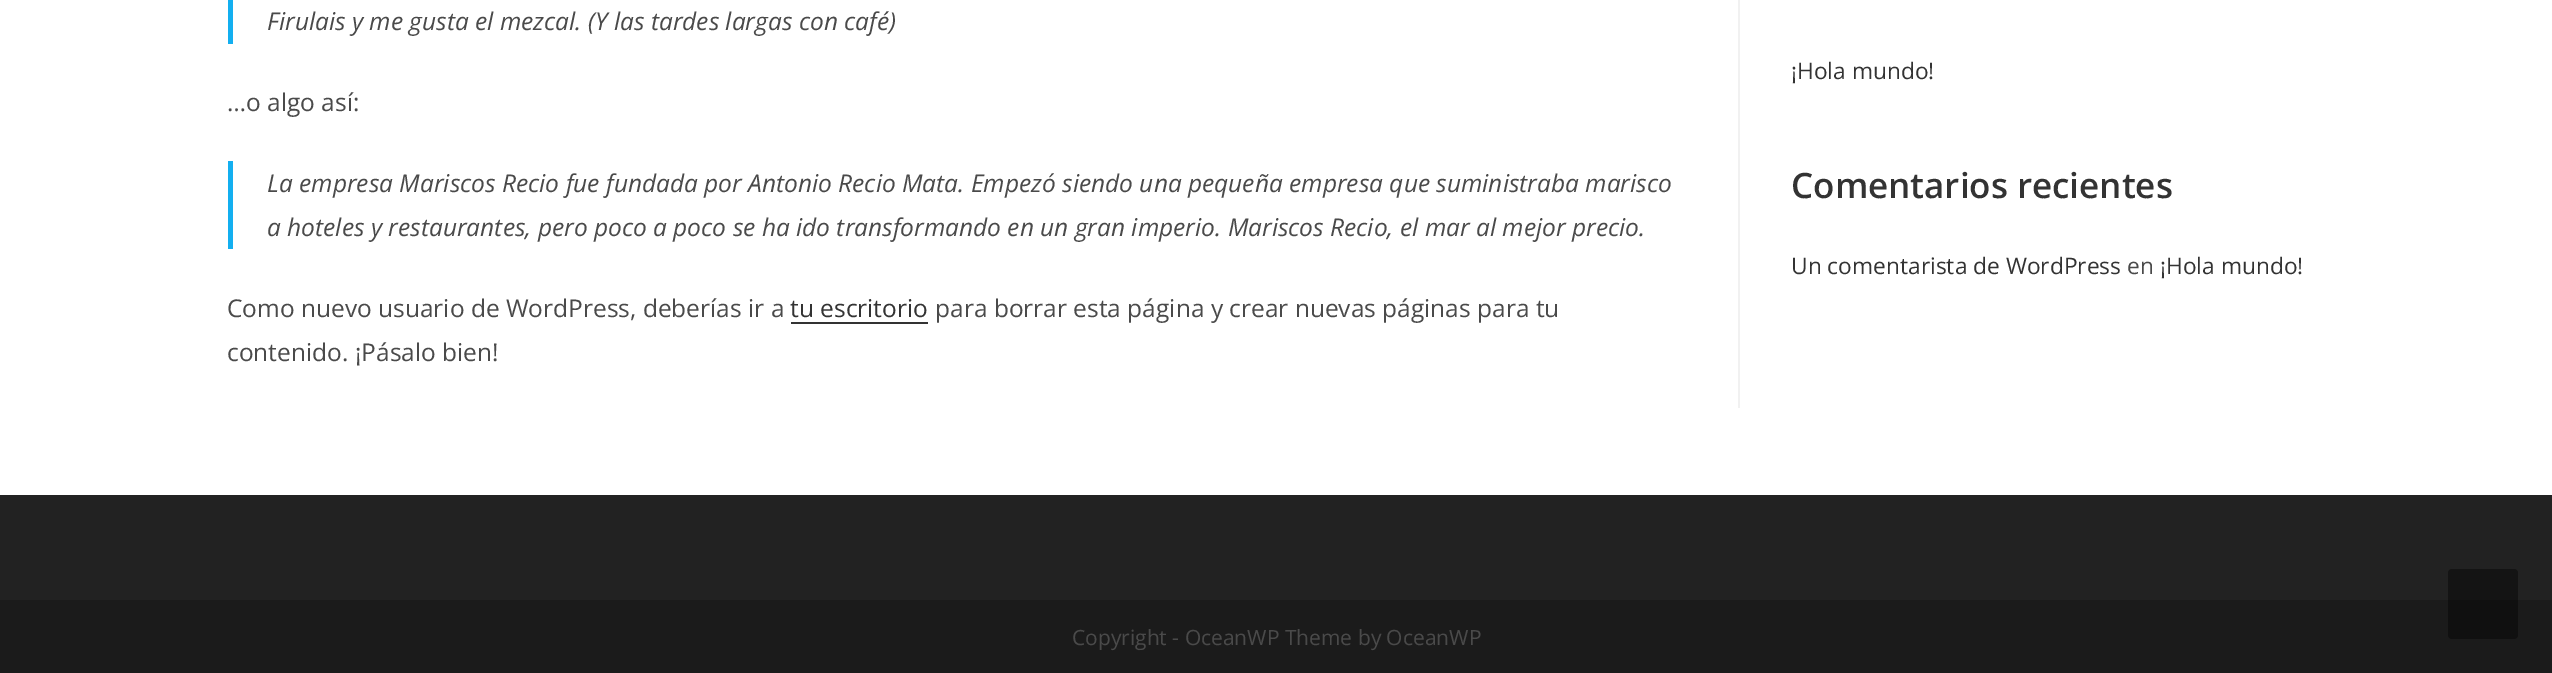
%!PS
<< /PageSize [2552 673] /PageUsesTransparency true >> setpagedevice
/fl/fill load def
/co { dup -16 bitshift 255 div exch dup -8 bitshift 255 and 255 div exch 255 and 255 div setrgbcolor } def
/fn { [ exch dup neg 0 0 3 -1 roll 0 0 ] selectfont } def
/tx { co fn moveto show } def
/bx { co rectfill } def
/al { dup .setfillconstantalpha .setstrokeconstantalpha } def
/rr { 5 dict begin { /r /h /w /y /x } { exch def } forall
  x r add y moveto x w add y 2 copy h add r arct x w add y h add x 1 index r arct
  x y h add x y r arct x y 2 copy exch w add exch r arct closepath end } def
0 .pushpdf14devicefilter
0 673 translate 1 -1 scale
4 setmiterlimit
0 0 2552 673 16#FFFFFF bx
1738 0 2 408 16#F1F1F1 bx
228 0 5 44 16#13AFF0 bx
228 161 5 88 16#13AFF0 bx
791 322 137 2 16#333333 bx
0 495 2552 105 16#222222 bx
0 600 2552 73 16#1B1B1B bx
0.4 al
16#000000 co
2448 569 70 70 4 rr fl
1 al
(Firulais y me gusta el mezcal. \(Y las tardes largas con café\)) 267 30 /OpenSans-Italic 24.5 16#4A4A4A tx
(…o algo así:) 227 111 /OpenSans-Regular 24.5 16#4A4A4A tx
(La empresa Mariscos Recio fue fundada por Antonio Recio Mata. Empezó siendo una pequeña empresa que suministraba marisco) 267 192 /OpenSans-Italic 24.5 16#4A4A4A tx
(a hoteles y restaurantes, pero poco a poco se ha ido transformando en un gran imperio. Mariscos Recio, el mar al mejor precio.) 267 236 /OpenSans-Italic 24.5 16#4A4A4A tx
(Como nuevo usuario de WordPress, deberías ir a) 227 317 /OpenSans-Regular 24.5 16#4A4A4A tx
(tu escritorio) 790 317 /OpenSans-Regular 24.5 16#333333 tx
(para borrar esta página y crear nuevas páginas para tu) 935 317 /OpenSans-Regular 24.5 16#4A4A4A tx
(contenido. ¡Pásalo bien!) 227 361 /OpenSans-Regular 24.5 16#4A4A4A tx
(¡Hola mundo!) 1791 79 /OpenSans-Regular 22.75 16#333333 tx
(Comentarios recientes) 1791 198 /OpenSans-SemiBold 35 16#333333 tx
(Un comentarista de WordPress) 1791 274 /OpenSans-Regular 22.75 16#333333 tx
(en) 2127 274 /OpenSans-Regular 22.75 16#4A4A4A tx
(¡Hola mundo!) 2160 274 /OpenSans-Regular 22.75 16#333333 tx
(Copyright - OceanWP Theme by OceanWP) 1072 645 /OpenSans-Regular 21 16#4A4A4A tx
.poppdf14devicefilter showpage
